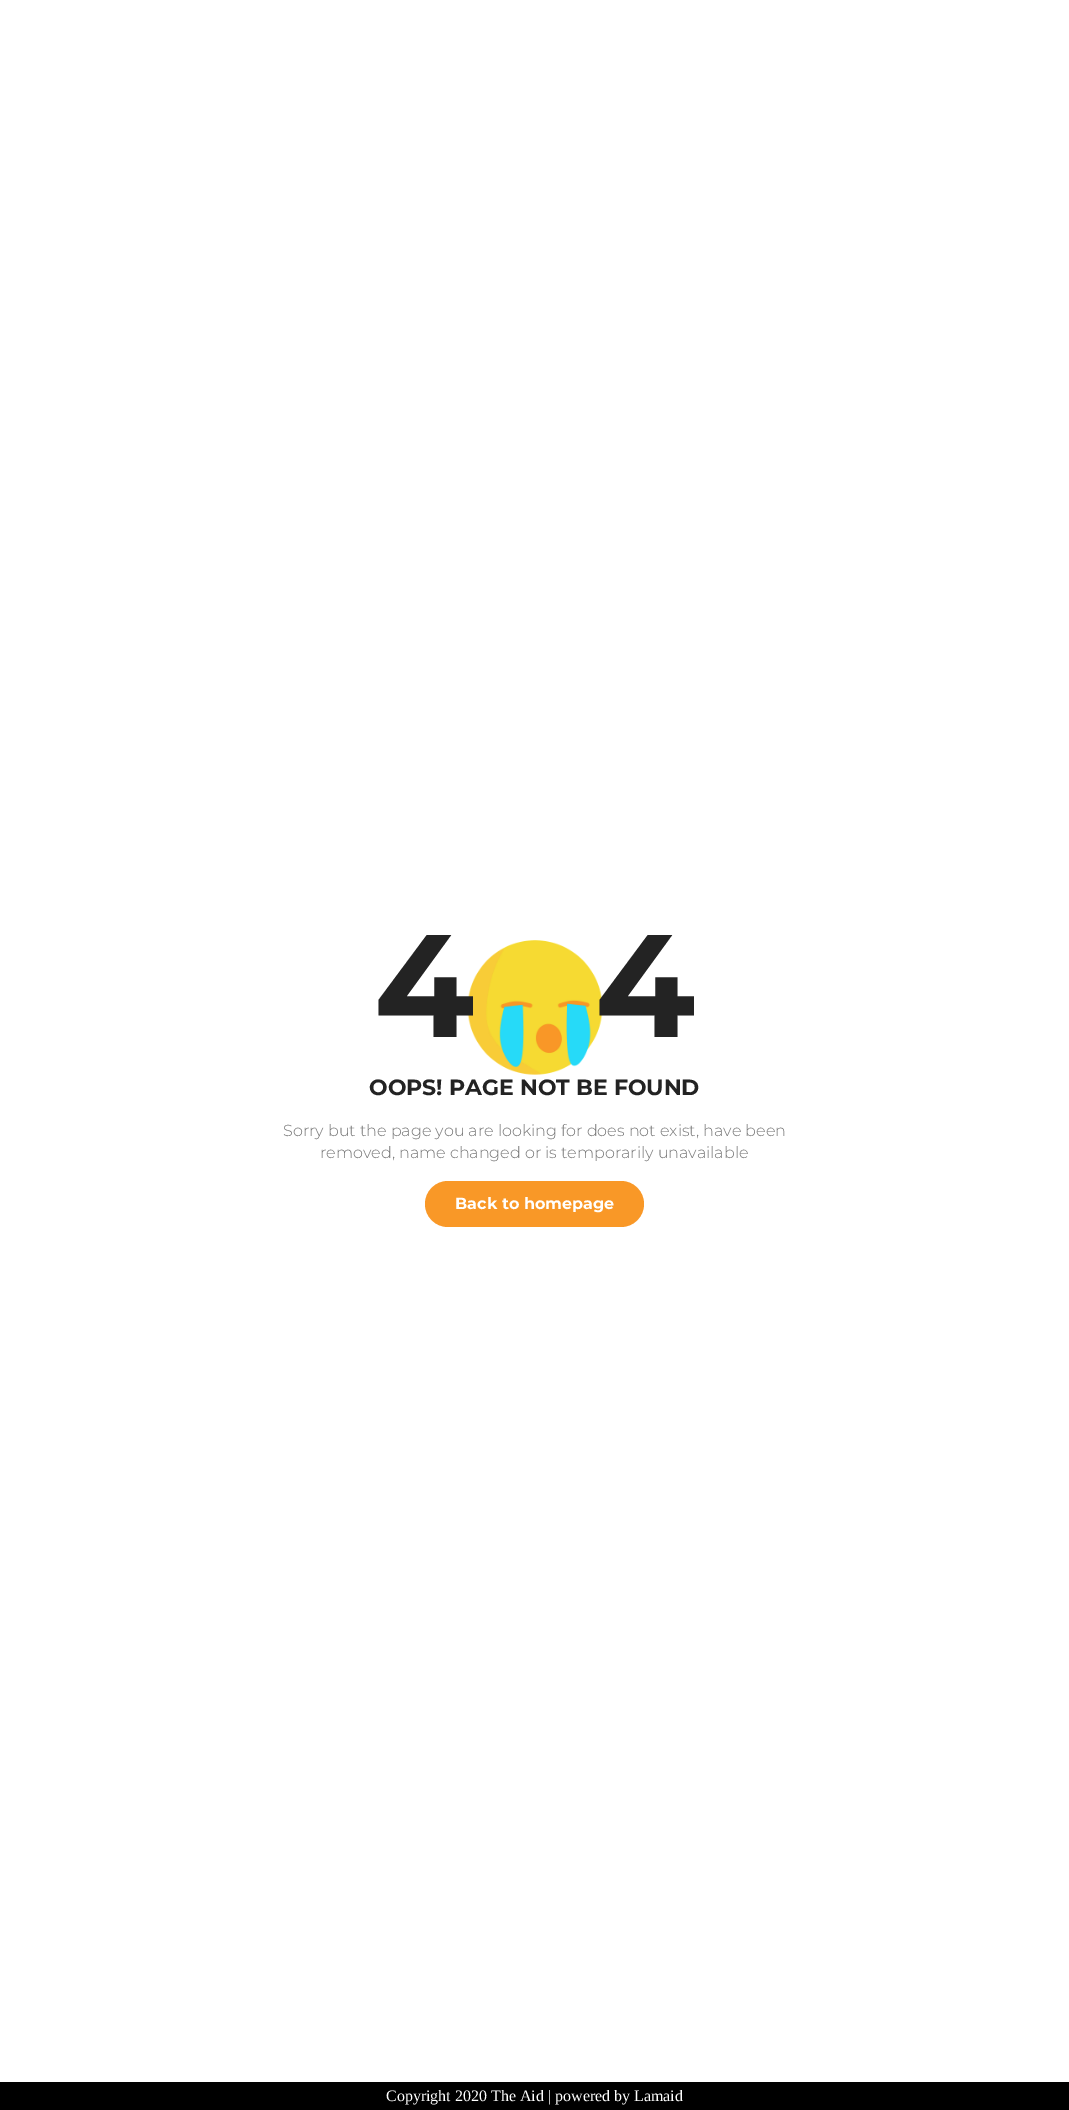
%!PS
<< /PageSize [1069 2110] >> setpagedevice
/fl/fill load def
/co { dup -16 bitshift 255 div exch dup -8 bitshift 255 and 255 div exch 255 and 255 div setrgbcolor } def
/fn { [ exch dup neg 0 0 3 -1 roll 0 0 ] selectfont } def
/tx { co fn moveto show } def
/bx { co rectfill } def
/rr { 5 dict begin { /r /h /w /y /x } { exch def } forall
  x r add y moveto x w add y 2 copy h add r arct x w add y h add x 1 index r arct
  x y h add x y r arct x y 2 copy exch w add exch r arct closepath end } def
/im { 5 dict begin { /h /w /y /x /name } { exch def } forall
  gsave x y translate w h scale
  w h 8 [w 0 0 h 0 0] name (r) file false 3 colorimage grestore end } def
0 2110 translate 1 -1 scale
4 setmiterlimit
0 0 1069 2110 16#FFFFFF bx
(media/1.raw) 467 940 136 135 im
16#F99827 co
425 1181 219 46 23 rr fl
0 2082 1069 28 16#000000 bx
(4) 374 1037 /Montserrat-Bold 146 16#232323 tx
(4) 595 1037 /Montserrat-Bold 146 16#232323 tx
(OOPS! PAGE NOT BE FOUND) 369 1095 /Montserrat-Bold 22 16#232323 tx
(Sorry but the page you are looking for does not exist, have been) 283 1136 /Montserrat-Light 16 16#787878 tx
(removed, name changed or is temporarily unavailable) 320 1158 /Montserrat-Light 16 16#787878 tx
(Back to homepage) 455 1209 /Montserrat-Bold 16 16#FFFFFF tx
(Copyright 2020 The Aid | powered by Lamaid) 386 2101 /LiberationSerif-Regular 16 16#FFFFFF tx
showpage
